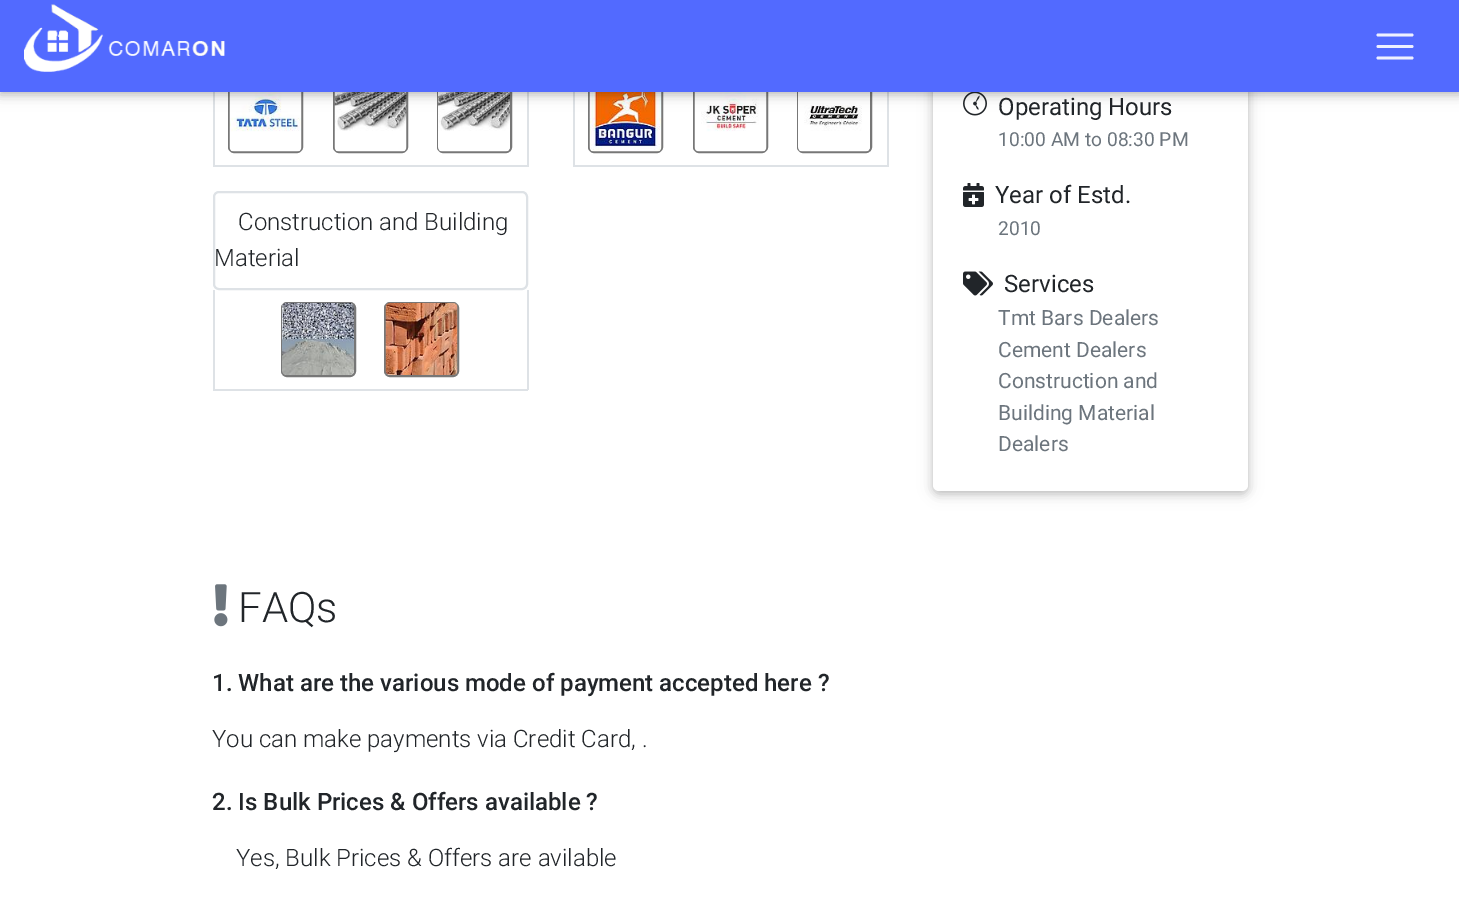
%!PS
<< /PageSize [1459 900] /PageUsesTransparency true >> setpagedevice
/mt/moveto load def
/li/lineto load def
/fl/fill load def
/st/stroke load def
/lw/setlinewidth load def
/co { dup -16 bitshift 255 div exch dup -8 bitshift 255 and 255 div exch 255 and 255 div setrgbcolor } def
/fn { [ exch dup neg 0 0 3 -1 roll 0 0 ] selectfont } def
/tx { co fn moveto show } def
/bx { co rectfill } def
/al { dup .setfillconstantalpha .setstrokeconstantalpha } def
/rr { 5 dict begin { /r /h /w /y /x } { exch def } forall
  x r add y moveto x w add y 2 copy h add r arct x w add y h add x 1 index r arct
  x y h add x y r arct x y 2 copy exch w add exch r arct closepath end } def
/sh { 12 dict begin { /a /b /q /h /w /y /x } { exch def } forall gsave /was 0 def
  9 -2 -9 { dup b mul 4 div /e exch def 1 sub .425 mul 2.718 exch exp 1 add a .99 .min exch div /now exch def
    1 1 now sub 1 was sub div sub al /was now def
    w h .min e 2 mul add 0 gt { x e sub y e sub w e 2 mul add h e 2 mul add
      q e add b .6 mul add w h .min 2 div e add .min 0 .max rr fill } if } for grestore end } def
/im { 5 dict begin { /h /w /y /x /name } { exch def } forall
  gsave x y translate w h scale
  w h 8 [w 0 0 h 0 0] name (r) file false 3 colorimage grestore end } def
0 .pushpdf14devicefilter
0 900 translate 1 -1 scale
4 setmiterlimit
0 0 1459 900 16#FFFFFF bx
527 92 2 75 16#DEE2E6 bx
213 165 315 2 16#DEE2E6 bx
213 92 2 75 16#DEE2E6 bx
16#777777 co
2 lw
229 79 73 73 5 rr st
334 79 73 73 5 rr st
438 79 73 73 5 rr st
(media/2.raw) 229 92 73 60 im
(media/3.raw) 334 92 73 60 im
(media/4.raw) 438 92 72 60 im
887 92 2 75 16#DEE2E6 bx
573 165 315 2 16#DEE2E6 bx
573 92 2 75 16#DEE2E6 bx
16#777777 co
589 79 73 73 5 rr st
694 79 73 73 5 rr st
798 79 73 73 5 rr st
(media/5.raw) 589 92 73 60 im
(media/6.raw) 694 92 73 60 im
(media/7.raw) 798 92 72 60 im
16#000000 co
933 -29 315 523 6 7.5 .12 sh
933 -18 315 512 6 4 .16 sh
16#FFFFFF co
933 -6 315 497 6 rr fl
(media/11.raw) 963 92 24 24 im
16#000000 co
0 3 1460 92 0 7.5 .12 sh
0 3 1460 92 0 4 .16 sh
0 0 1459 92 16#526AFF bx
(media/1.raw) 24 4 201 68 im
16#EEF0FF co
2.8 lw
1 setlinecap
1378 35 mt 1412 35 li 1378 46.5 mt 1412 46.5 li 1378 58 mt 1412 58 li st
16#DEE2E6 co
2 lw
0 setlinecap
214 192 313 97 5 rr st
527 290 2 100 16#DEE2E6 bx
213 389 315 2 16#DEE2E6 bx
213 290 2 100 16#DEE2E6 bx
16#777777 co
282 303 73 73 5 rr st
385 303 73 73 5 rr st
(media/8.raw) 282 303 72 72 im
(media/9.raw) 385 303 73 72 im
(media/10.raw) 214 584 14 43 im
(media/12.raw) 963 183 21 24 im
(media/13.raw) 963 271 30 25 im
(Construction and Building) 238 230 /Roboto-Light 24 16#212529 tx
(Material) 214 266 /Roboto-Light 24 16#212529 tx
(FAQs) 238 622 /Roboto-Light 42 16#212529 tx
(1. What are the various mode of payment accepted here ?) 212 691 /Roboto-Medium 24 16#212529 tx
(You can make payments via Credit Card, .) 212 747 /Roboto-Light 24 16#212529 tx
(2. Is Bulk Prices & Offers available ?) 212 810 /Roboto-Medium 24 16#212529 tx
(Yes, Bulk Prices & Offers are avilable) 236 866 /Roboto-Light 24 16#212529 tx
(Operating Hours) 998 115 /Roboto-Regular 24 16#212529 tx
(10:00 AM to 08:30 PM) 998 146 /Roboto-Regular 19.25 16#6C757D tx
(Year of Estd.) 995 203 /Roboto-Regular 24 16#212529 tx
(2010) 998 235 /Roboto-Regular 19.25 16#6C757D tx
(Services) 1004 292 /Roboto-Regular 24 16#212529 tx
(Tmt Bars Dealers) 998 325 /Roboto-Regular 21 16#6C757D tx
(Cement Dealers) 998 357 /Roboto-Regular 21 16#6C757D tx
(Construction and) 998 388 /Roboto-Regular 21 16#6C757D tx
(Building Material) 998 420 /Roboto-Regular 21 16#6C757D tx
(Dealers) 998 451 /Roboto-Regular 21 16#6C757D tx
.poppdf14devicefilter showpage
